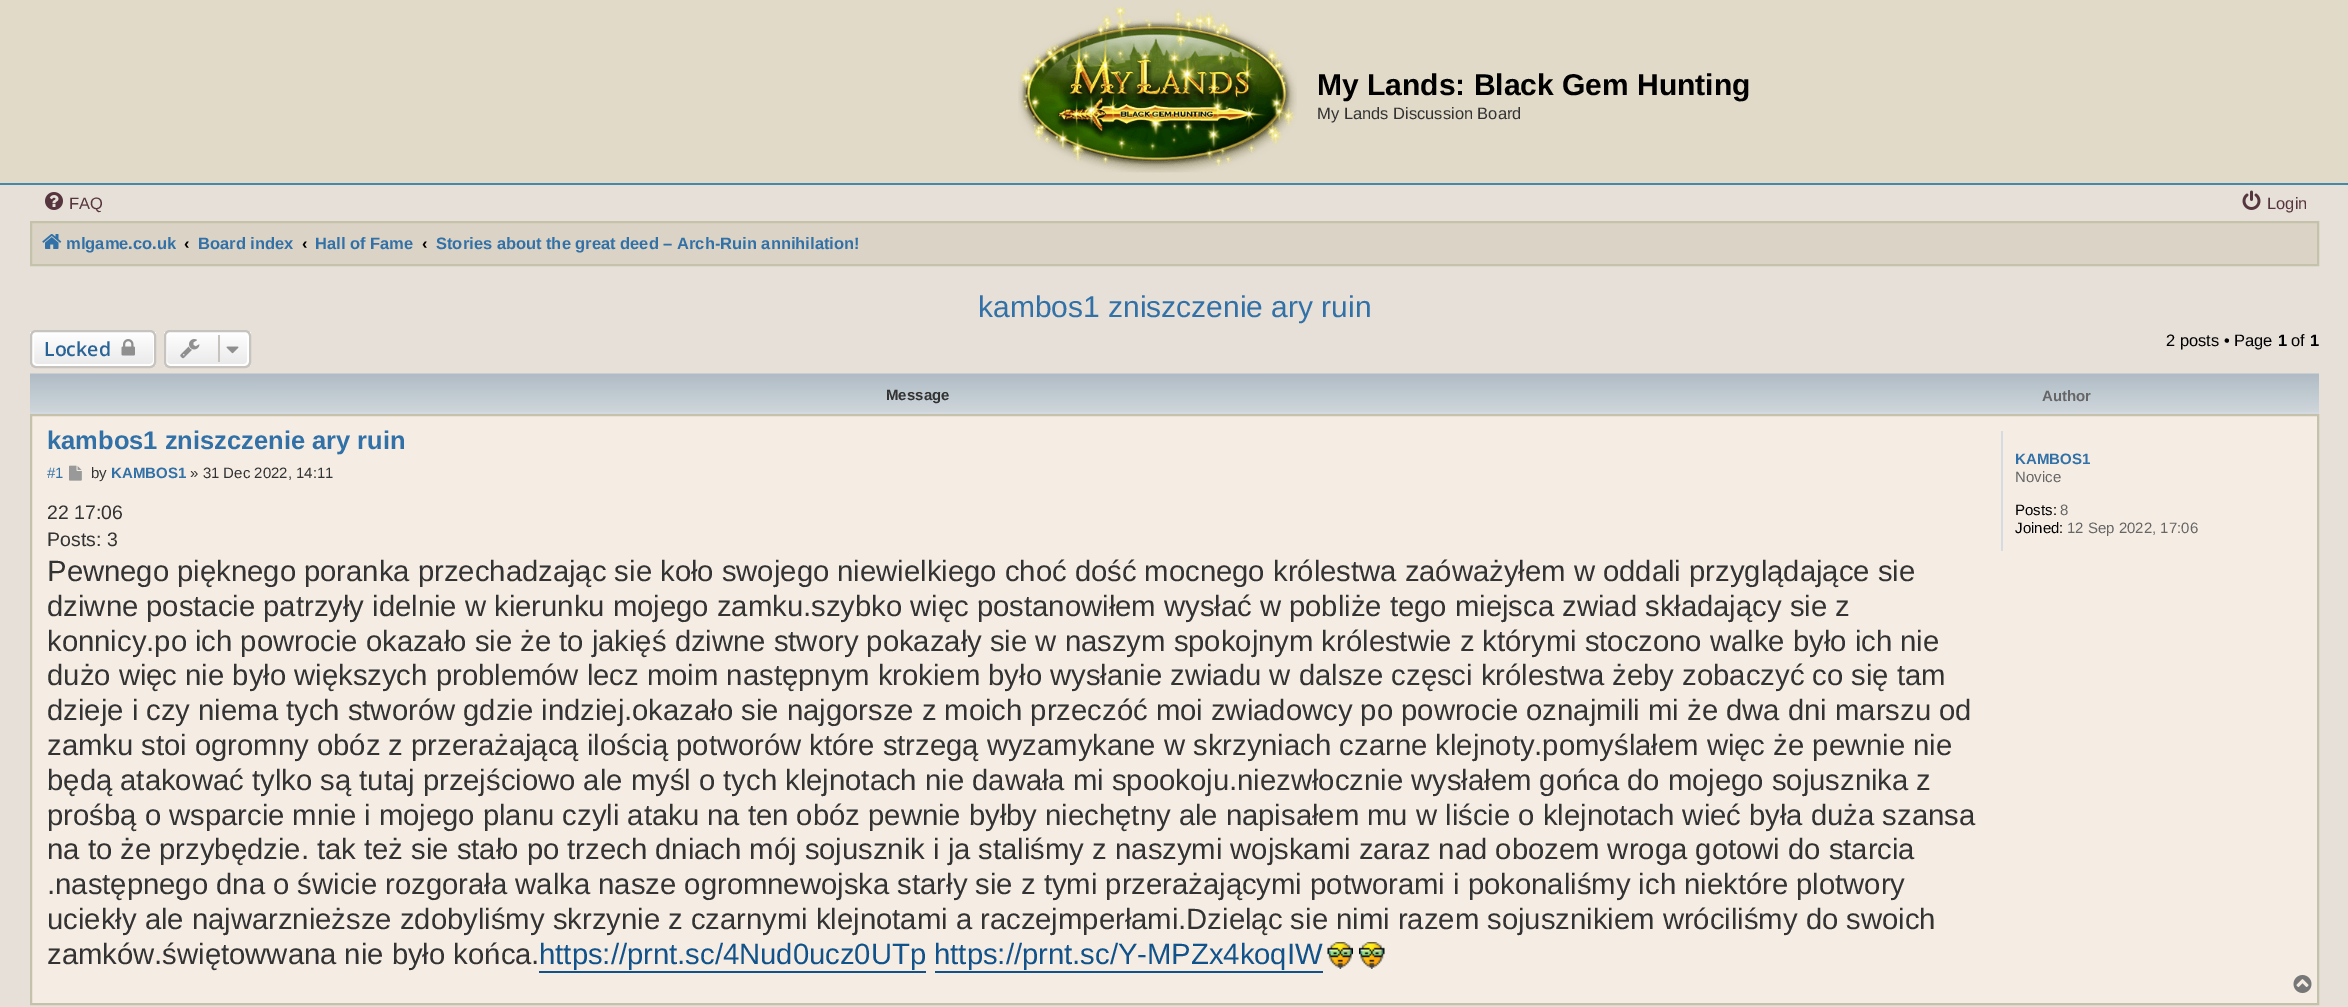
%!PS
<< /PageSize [2348 1007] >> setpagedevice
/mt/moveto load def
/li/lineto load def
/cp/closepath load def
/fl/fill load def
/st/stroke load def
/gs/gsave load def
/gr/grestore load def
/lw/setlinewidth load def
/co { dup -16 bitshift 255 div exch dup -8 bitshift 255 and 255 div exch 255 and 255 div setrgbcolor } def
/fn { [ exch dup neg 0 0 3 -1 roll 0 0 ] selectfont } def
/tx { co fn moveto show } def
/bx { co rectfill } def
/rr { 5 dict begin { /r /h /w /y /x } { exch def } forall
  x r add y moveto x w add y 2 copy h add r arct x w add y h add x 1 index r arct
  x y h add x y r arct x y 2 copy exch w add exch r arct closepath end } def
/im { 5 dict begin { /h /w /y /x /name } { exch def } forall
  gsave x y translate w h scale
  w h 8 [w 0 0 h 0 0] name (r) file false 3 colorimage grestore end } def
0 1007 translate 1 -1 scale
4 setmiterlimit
0 0 2348 1007 16#E7E0D8 bx
0 0 2348 183 16#E1DAC9 bx
0 183 2348 2 16#4787A7 bx
(media/1.raw) 1018 7 279 166 im
(media/2.raw) 45 192 18 18 im
(media/3.raw) 2242 190 19 20 im
16#DBD4C6 co
31 222 mt 2318 222 li 2318 265 li 31 265 li cp gs fl gr
16#C5C2AB co
2 lw
st
(media/4.raw) 42 234 20 15 im
gs
30 330 126 38 6 rr clip newpath
gs 30 332 mt 156 332 li 156 366 li 30 366 li cp clip newpath
<< /ShadingType 2 /ColorSpace /DeviceRGB /Coords [93 332 93 366] /Extend [true true] /Function << /FunctionType 2 /Domain [0 1] /C0 [1 1 1] /C1 [.914 .914 .914] /N 1 >> >> shfill gr
gr
16#FFFFFF co
33 333 121 32 4 rr st
16#C7C3BF co
31 331 124 36 5 rr st
(media/5.raw) 121 339 14 17 im
gs
164 330 87 38 6 rr clip newpath
gs 164 332 mt 251 332 li 251 366 li 164 366 li cp clip newpath
<< /ShadingType 2 /ColorSpace /DeviceRGB /Coords [207 332 207 366] /Extend [true true] /Function << /FunctionType 2 /Domain [0 1] /C0 [1 1 1] /C1 [.914 .914 .914] /N 1 >> >> shfill gr
gr
16#FFFFFF co
166 333 82 32 4 rr st
16#C7C3BF co
165 331 85 36 5 rr st
(media/6.raw) 180 339 20 20 im
218 335 2 27 16#C7C3BF bx
(media/7.raw) 226 346 13 8 im
30 412 2289 2 16#D3D9DE bx
(media/8.raw) 30 373 2289 39 im
16#F5EDE4 co
31 415 mt 2318 415 li 2318 1004 li 31 1004 li cp gs fl gr
16#C5C2AB co
st
(media/9.raw) 69 465 13 16 im
539 971 387 2 16#105289 bx
935 971 388 2 16#105289 bx
(media/10.raw) 1327 942 26 27 im
(media/11.raw) 1359 942 26 27 im
2001 431 2 120 16#D5DBE0 bx
(media/12.raw) 2293 975 19 18 im
(My Lands: Black Gem Hunting) 1317 95 /LiberationSans-Bold 30 16#000000 tx
(My Lands Discussion Board) 1317 119 /LiberationSans-Regular 16.5 16#333333 tx
(FAQ) 69 209 /LiberationSans-Regular 16.5 16#57353E tx
(Login) 2267 209 /LiberationSans-Regular 16.5 16#57353E tx
(mlgame.co.uk) 66 249 /LiberationSans-Bold 16.5 16#3271A7 tx
(‹) 184 249 /LiberationSans-Bold 16.5 16#000000 tx
(Board index) 198 249 /LiberationSans-Bold 16.5 16#3271A7 tx
(‹) 302 249 /LiberationSans-Bold 16.5 16#000000 tx
(Hall of Fame) 315 249 /LiberationSans-Bold 16.5 16#3271A7 tx
(‹) 422 249 /LiberationSans-Bold 16.5 16#000000 tx
(Stories about the great deed – Arch-Ruin annihilation!) 436 249 /LiberationSans-Bold 16.5 16#3271A7 tx
(kambos1 zniszczenie ary ruin) 978 317 /LiberationSans-Regular 30 16#3271A7 tx
(Locked) 44 356 /OpenSans-SemiBold 19.5 16#2A6496 tx
(2 posts • Page) 2166 346 /LiberationSans-Regular 16.5 16#000000 tx
(1) 2278 346 /LiberationSans-Bold 16.5 16#000000 tx
(of) 2291 346 /LiberationSans-Regular 16.5 16#000000 tx
(1) 2310 346 /LiberationSans-Bold 16.5 16#000000 tx
(Message) 886 400 /LiberationSans-Bold 15 16#333333 tx
(Author) 2042 401 /LiberationSans-Bold 15 16#666666 tx
(kambos1 zniszczenie ary ruin) 47 449 /LiberationSans-Bold 25.5 16#3271A7 tx
(#1) 47 478 /LiberationSans-Regular 15 16#3271A7 tx
(by) 91 478 /LiberationSans-Regular 15 16#333333 tx
(KAMBOS1) 111 478 /LiberationSans-Bold 15 16#3271A7 tx
(» 31 Dec 2022, 14:11) 190 478 /LiberationSans-Regular 15 16#333333 tx
(22 17:06) 47 519 /LiberationSans-Regular 19.5 16#333333 tx
(Posts: 3) 47 546 /LiberationSans-Regular 19.5 16#333333 tx
(Pewnego pięknego poranka przechadzając sie koło swojego niewielkiego choć dość mocnego królestwa zaóważyłem w oddali przyglądające sie) 47 581 /LiberationSans-Regular 29.25 16#333333 tx
(dziwne postacie patrzyły idelnie w kierunku mojego zamku.szybko więc postanowiłem wysłać w pobliże tego miejsca zwiad składający sie z) 47 616 /LiberationSans-Regular 29.25 16#333333 tx
(konnicy.po ich powrocie okazało sie że to jakięś dziwne stwory pokazały sie w naszym spokojnym królestwie z którymi stoczono walke było ich nie) 47 651 /LiberationSans-Regular 29.25 16#333333 tx
(dużo więc nie było większych problemów lecz moim następnym krokiem było wysłanie zwiadu w dalsze częsci królestwa żeby zobaczyć co się tam) 47 685 /LiberationSans-Regular 29.25 16#333333 tx
(dzieje i czy niema tych stworów gdzie indziej.okazało sie najgorsze z moich przeczóć moi zwiadowcy po powrocie oznajmili mi że dwa dni marszu od) 47 720 /LiberationSans-Regular 29.25 16#333333 tx
(zamku stoi ogromny obóz z przerażającą ilością potworów które strzegą wyzamykane w skrzyniach czarne klejnoty.pomyślałem więc że pewnie nie) 47 755 /LiberationSans-Regular 29.25 16#333333 tx
(będą atakować tylko są tutaj przejściowo ale myśl o tych klejnotach nie dawała mi spookoju.niezwłocznie wysłałem gońca do mojego sojusznika z) 47 790 /LiberationSans-Regular 29.25 16#333333 tx
(prośbą o wsparcie mnie i mojego planu czyli ataku na ten obóz pewnie byłby niechętny ale napisałem mu w liście o klejnotach wieć była duża szansa) 47 825 /LiberationSans-Regular 29.25 16#333333 tx
(na to że przybędzie. tak też sie stało po trzech dniach mój sojusznik i ja staliśmy z naszymi wojskami zaraz nad obozem wroga gotowi do starcia) 47 859 /LiberationSans-Regular 29.25 16#333333 tx
(.następnego dna o świcie rozgorała walka nasze ogromnewojska starły sie z tymi przerażającymi potworami i pokonaliśmy ich niektóre plotwory) 47 894 /LiberationSans-Regular 29.25 16#333333 tx
(uciekły ale najwarznieższe zdobyliśmy skrzynie z czarnymi klejnotami a raczejmperłami.Dzieląc sie nimi razem sojusznikiem wróciliśmy do swoich) 47 929 /LiberationSans-Regular 29.25 16#333333 tx
(zamków.świętowwana nie było końca.) 47 964 /LiberationSans-Regular 29.25 16#333333 tx
(https://prnt.sc/4Nud0ucz0UTp https://prnt.sc/Y-MPZx4koqIW) 539 964 /LiberationSans-Regular 29.25 16#105289 tx
(KAMBOS1) 2015 464 /LiberationSans-Bold 15 16#3271A7 tx
(Novice) 2015 482 /LiberationSans-Regular 15 16#666666 tx
(Posts:) 2015 515 /LiberationSans-Regular 15 16#000000 tx
(8) 2060 515 /LiberationSans-Regular 15 16#666666 tx
(Joined:) 2015 533 /LiberationSans-Regular 15 16#000000 tx
(12 Sep 2022, 17:06) 2067 533 /LiberationSans-Regular 15 16#666666 tx
showpage
